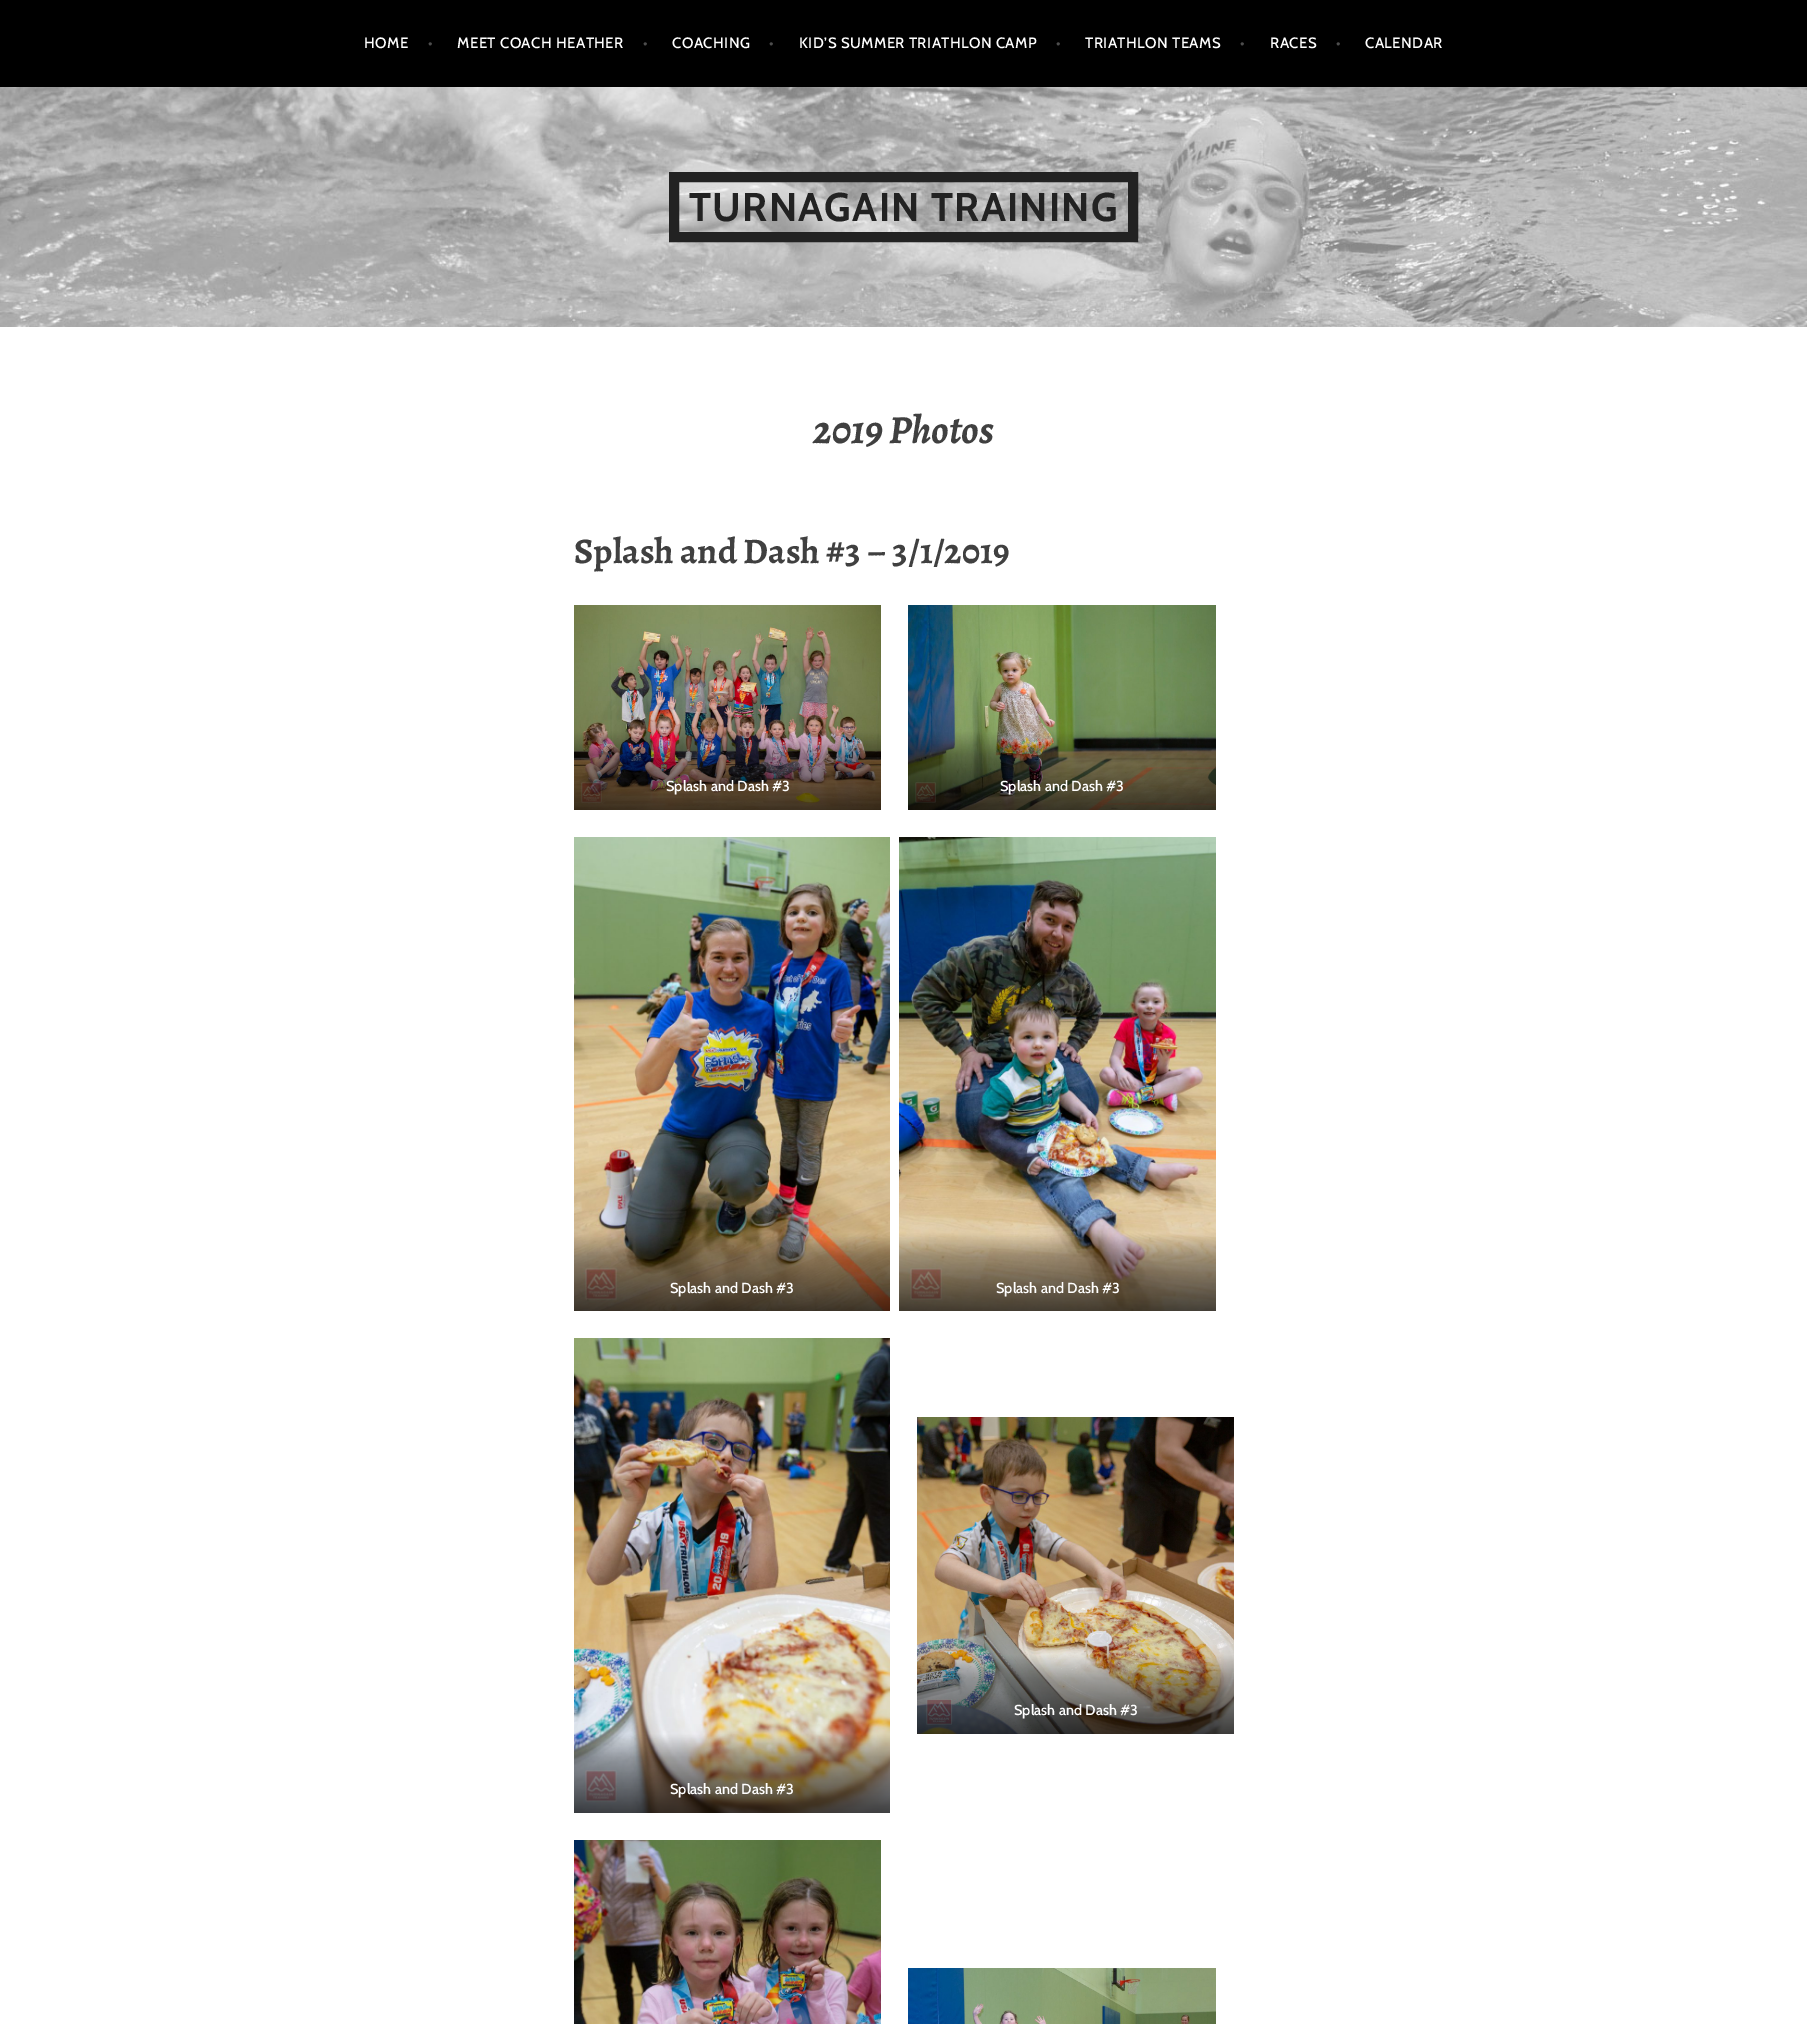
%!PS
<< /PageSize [1807 2024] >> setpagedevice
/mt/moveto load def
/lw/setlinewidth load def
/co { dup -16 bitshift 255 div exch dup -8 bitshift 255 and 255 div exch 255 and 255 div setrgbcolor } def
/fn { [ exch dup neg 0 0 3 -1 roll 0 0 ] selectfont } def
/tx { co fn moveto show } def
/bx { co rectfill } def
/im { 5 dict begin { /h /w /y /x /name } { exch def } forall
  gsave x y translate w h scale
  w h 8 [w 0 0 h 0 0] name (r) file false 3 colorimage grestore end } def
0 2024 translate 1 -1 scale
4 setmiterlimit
0 0 1807 2024 16#FFFFFF bx
0 0 1807 87 16#000000 bx
(media/1.raw) 0 87 1807 240 im
16#222222 co
10 lw
674 177 459 60 rectstroke
(media/2.raw) 574 605 307 205 im
(media/3.raw) 908 605 308 205 im
(media/4.raw) 574 837 316 474 im
(media/5.raw) 899 837 317 474 im
(media/6.raw) 917 1417 317 317 im
(media/7.raw) 574 1338 316 475 im
(media/8.raw) 574 1840 307 184 im
(media/9.raw) 908 1968 308 56 im
/Cabin-Medium 15 fn
16#FFFFFF co
364 48 mt .45 0 (HOME) ashow
16#4D4D4D co
428 48 mt .45 0 (•) ashow
16#FFFFFF co
457 48 mt .45 0 (MEET COACH HEATHER) ashow
16#4D4D4D co
643 48 mt .45 0 (•) ashow
16#FFFFFF co
672 48 mt .45 0 (COACHING) ashow
16#4D4D4D co
769 48 mt .45 0 (•) ashow
16#FFFFFF co
799 48 mt .45 0 (KID’S SUMMER TRIATHLON CAMP) ashow
16#4D4D4D co
1056 48 mt .45 0 (•) ashow
16#FFFFFF co
1085 48 mt .45 0 (TRIATHLON TEAMS) ashow
16#4D4D4D co
1240 48 mt .45 0 (•) ashow
16#FFFFFF co
1270 48 mt .45 0 (RACES) ashow
16#4D4D4D co
1336 48 mt .45 0 (•) ashow
16#FFFFFF co
1365 48 mt .45 0 (CALENDAR) ashow
/Cabin-Bold 40 fn
16#222222 co
689 221 mt 1.25 0 (TURNAGAIN TRAINING) ashow
(2019 Photos) 813 443 /Alegreya-BoldItalic 40 16#404040 tx
(Splash and Dash #3 – 3/1/2019) 574 563 /Alegreya-Bold 36 16#404040 tx
(Splash and Dash #3) 666 791 /Cabin-Medium 14.5 16#FFFFFF tx
(Splash and Dash #3) 1000 791 /Cabin-Medium 14.5 16#FFFFFF tx
(Splash and Dash #3) 670 1293 /Cabin-Medium 14.5 16#FFFFFF tx
(Splash and Dash #3) 996 1293 /Cabin-Medium 14.5 16#FFFFFF tx
(Splash and Dash #3) 1014 1715 /Cabin-Medium 14.5 16#FFFFFF tx
(Splash and Dash #3) 670 1794 /Cabin-Medium 14.5 16#FFFFFF tx
showpage
